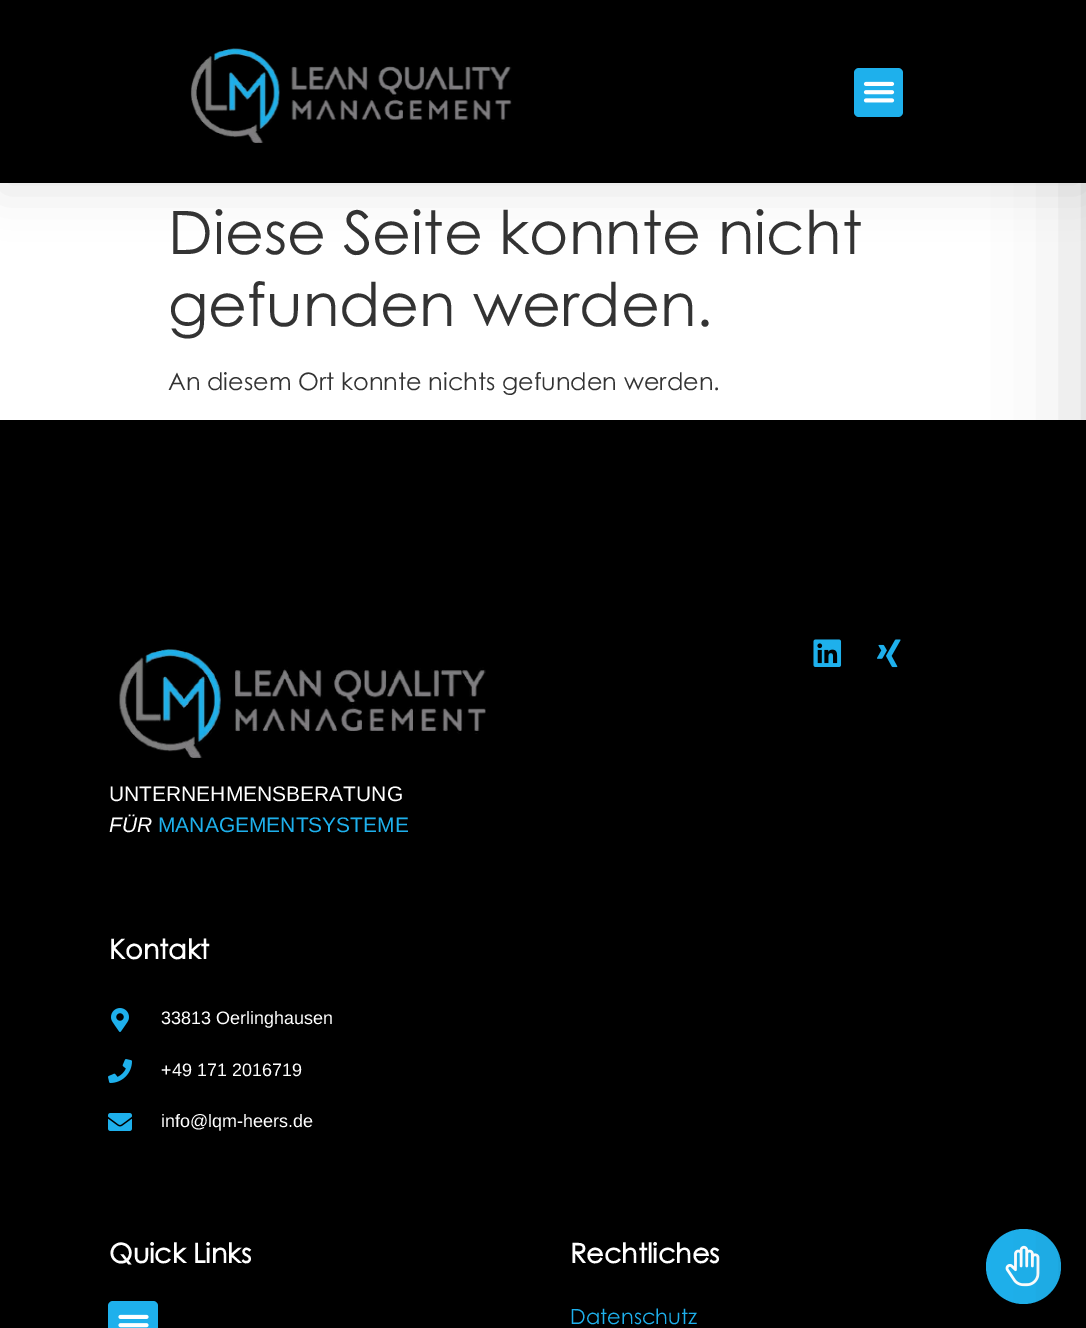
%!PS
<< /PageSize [1086 1328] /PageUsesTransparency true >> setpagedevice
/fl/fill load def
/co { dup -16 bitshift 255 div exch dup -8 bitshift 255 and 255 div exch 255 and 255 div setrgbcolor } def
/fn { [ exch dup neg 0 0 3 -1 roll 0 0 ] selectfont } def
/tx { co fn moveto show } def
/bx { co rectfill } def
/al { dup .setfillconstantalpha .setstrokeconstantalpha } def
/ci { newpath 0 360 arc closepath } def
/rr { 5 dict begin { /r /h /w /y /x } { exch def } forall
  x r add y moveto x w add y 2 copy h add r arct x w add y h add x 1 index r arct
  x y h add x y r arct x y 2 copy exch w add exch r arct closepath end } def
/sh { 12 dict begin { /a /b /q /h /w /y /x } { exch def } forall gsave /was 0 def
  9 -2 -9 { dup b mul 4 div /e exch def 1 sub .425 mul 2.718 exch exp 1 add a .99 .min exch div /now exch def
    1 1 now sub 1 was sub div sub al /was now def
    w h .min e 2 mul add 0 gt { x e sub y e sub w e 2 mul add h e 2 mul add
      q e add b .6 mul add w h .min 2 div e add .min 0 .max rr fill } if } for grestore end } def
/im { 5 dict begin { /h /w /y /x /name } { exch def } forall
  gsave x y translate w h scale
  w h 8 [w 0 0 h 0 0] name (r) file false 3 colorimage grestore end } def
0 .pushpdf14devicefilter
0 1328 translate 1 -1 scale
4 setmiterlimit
0 0 1086 1328 16#FFFFFF bx
16#000000 co
0 8 1086 183 0 22.5 .1 sh
0 0 1086 183 16#000000 bx
(media/1.raw) 190 48 322 95 im
16#1EB0EC co
854 68 49 49 5 rr fl
(media/2.raw) 863 81 32 22 im
0 420 1086 908 16#000000 bx
16#1EB0EC co
1023.5 1266.5 37.5 ci fl
(media/10.raw) 1005 1245 35 42 im
16#000000 co
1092 15 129 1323 0 45 .2 sh
(media/3.raw) 813 639 29 28 im
(media/4.raw) 877 639 24 29 im
(media/5.raw) 119 649 367 109 im
(media/6.raw) 111 1008 18 24 im
(media/7.raw) 108 1059 24 24 im
(media/8.raw) 108 1113 24 18 im
16#1EB0EC co
108 1301 50 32 5 rr fl
(media/9.raw) 118 1314 31 14 im
(Diese Seite konnte nicht) 168 254 /CenturyGothic-Regular 60 16#333333 tx
(gefunden werden.) 168 326 /CenturyGothic-Regular 60 16#333333 tx
(An diesem Ort konnte nichts gefunden werden.) 168 390 /CenturyGothic-Regular 24 16#333333 tx
(UNTERNEHMENSBERATUNG) 109 801 /LiberationSans-Regular 21 16#FFFFFF tx
(FÜR) 109 832 /LiberationSans-Italic 21 16#FFFFFF tx
(MANAGEMENTSYSTEME) 158 832 /LiberationSans-Regular 21 16#1EB0EC tx
(Kontakt) 109 959 /CenturyGothic-Bold 27 16#FFFFFF tx
(33813 Oerlinghausen) 161 1024 /LiberationSans-Regular 18 16#FFFFFF tx
(+49 171 2016719) 161 1076 /LiberationSans-Regular 18 16#FFFFFF tx
(info@lqm-heers.de) 161 1127 /LiberationSans-Regular 18 16#FFFFFF tx
(Quick Links) 109 1263 /CenturyGothic-Bold 27 16#FFFFFF tx
(Rechtliches) 570 1263 /CenturyGothic-Bold 27 16#FFFFFF tx
(Datenschutz) 570 1324 /CenturyGothic-Regular 21 16#1EB0EC tx
.poppdf14devicefilter showpage
